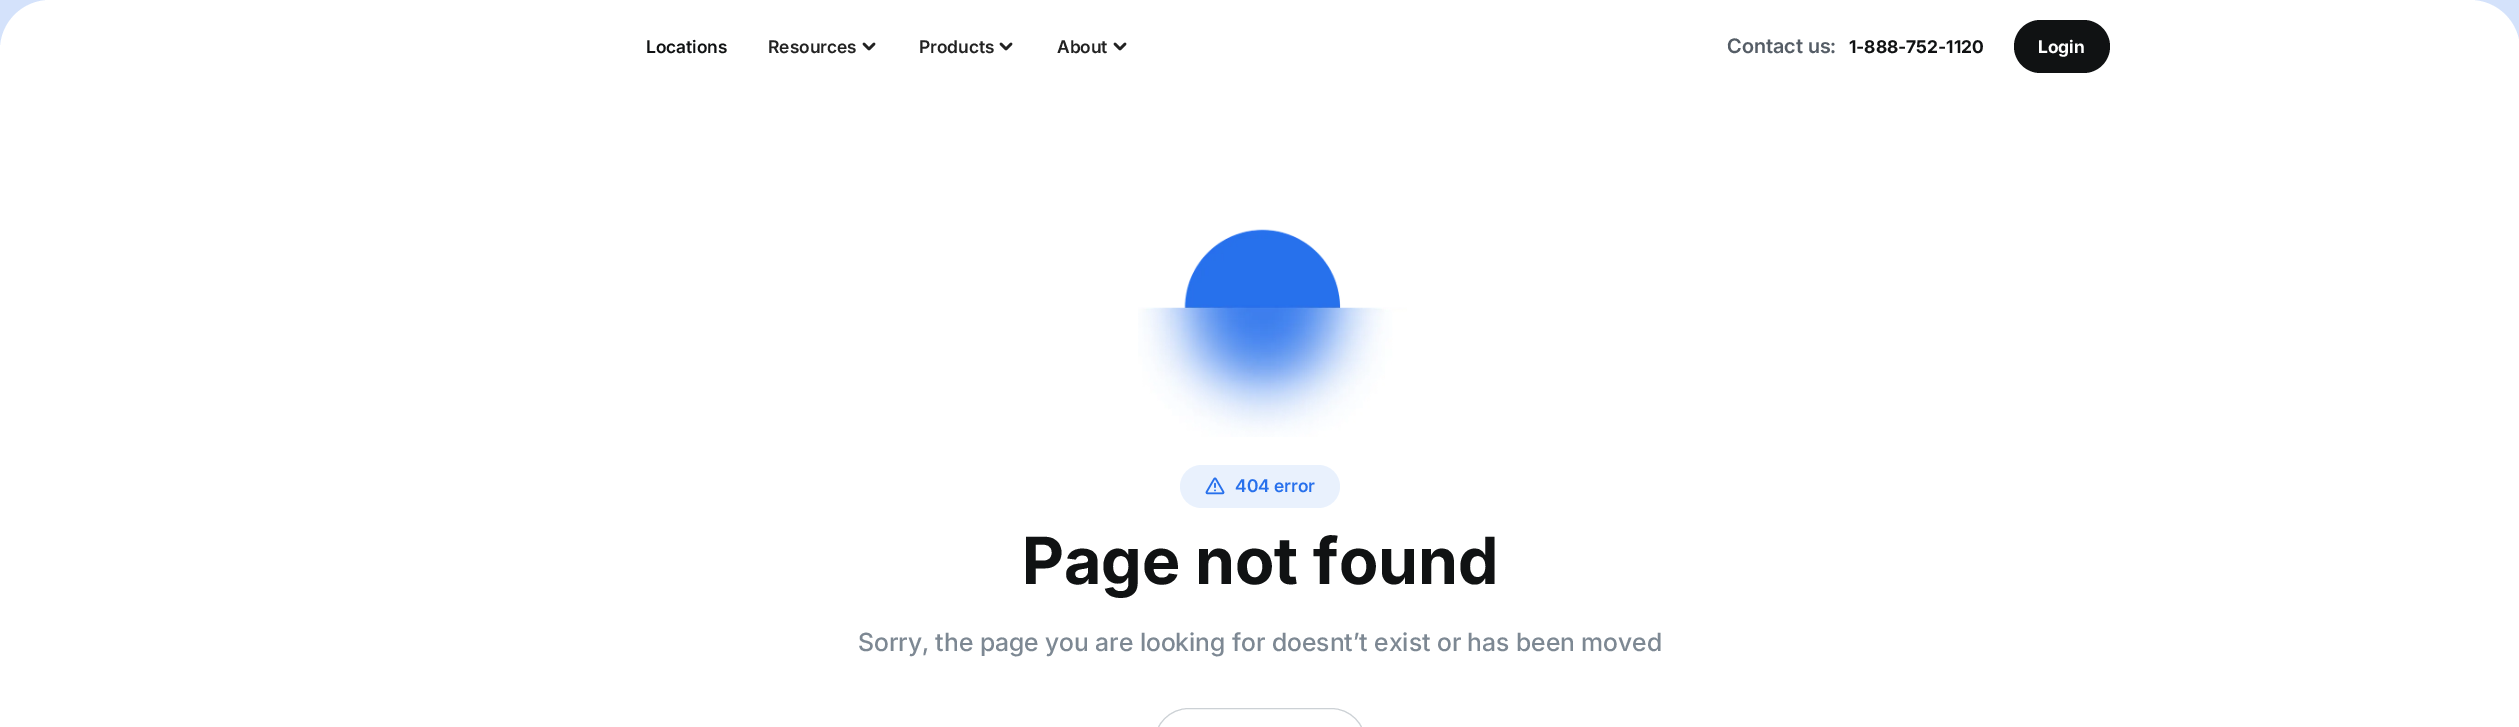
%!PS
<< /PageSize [2519 727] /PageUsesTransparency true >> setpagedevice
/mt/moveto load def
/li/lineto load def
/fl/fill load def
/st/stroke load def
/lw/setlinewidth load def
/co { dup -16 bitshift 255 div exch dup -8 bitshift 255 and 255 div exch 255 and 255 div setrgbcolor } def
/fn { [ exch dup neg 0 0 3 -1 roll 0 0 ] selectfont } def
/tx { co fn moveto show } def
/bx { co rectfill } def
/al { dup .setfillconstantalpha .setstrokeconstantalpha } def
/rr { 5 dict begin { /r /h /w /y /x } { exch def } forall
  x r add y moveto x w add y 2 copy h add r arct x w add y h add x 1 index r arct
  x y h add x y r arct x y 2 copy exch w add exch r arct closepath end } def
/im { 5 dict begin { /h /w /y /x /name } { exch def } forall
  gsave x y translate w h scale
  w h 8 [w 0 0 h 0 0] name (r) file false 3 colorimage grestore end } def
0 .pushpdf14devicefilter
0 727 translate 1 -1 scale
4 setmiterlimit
0 0 2519 727 16#2770EC bx
16#FFFFFF co
0 0 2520 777 50 rr fl
0.8 al
0 0 2519 50 16#FFFFFF bx
1 al
16#222222 co
2.5 lw
1 setlinecap
1 setlinejoin
864 44 mt 869 49 li 874 44 li st
1001 44 mt 1006 49 li 1011 44 li st
1115 44 mt 1120 49 li 1125 44 li st
16#101213 co
2014 20 96 53 26.5 rr fl
(media/1.raw) 1138 229 269 208 im
16#E9F1FD co
1180 465 160 43 21.5 rr fl
(media/2.raw) 1205 477 20 18 im
16#CCD1D5 co
1 lw
0 setlinecap
0 setlinejoin
1154.5 708.5 211 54 34.5 rr st
(Locations) 646 53 /Inter-SemiBold 17.5 16#101213 tx
(Resources) 768 53 /Inter-SemiBold 17.5 16#222222 tx
(Products) 919 53 /Inter-SemiBold 17.5 16#222222 tx
(About) 1057 53 /Inter-SemiBold 17.5 16#222222 tx
(Contact us:) 1727 53 /Inter-SemiBold 20 16#555D66 tx
(1-888-752-1120) 1849 53 /Inter-Bold 17.5 16#101213 tx
(Login) 2038 53 /Inter-Bold 17.5 16#FFFFFF tx
(404 error) 1235 492 /Inter-SemiBold 17.5 16#2770EC tx
(Page not found) 1022 584 /Inter-Bold 65 16#101213 tx
(Sorry, the page you are looking for doesnt’t exist or has been moved) 858 651 /Inter-Medium 25 16#7D8893 tx
.poppdf14devicefilter showpage
